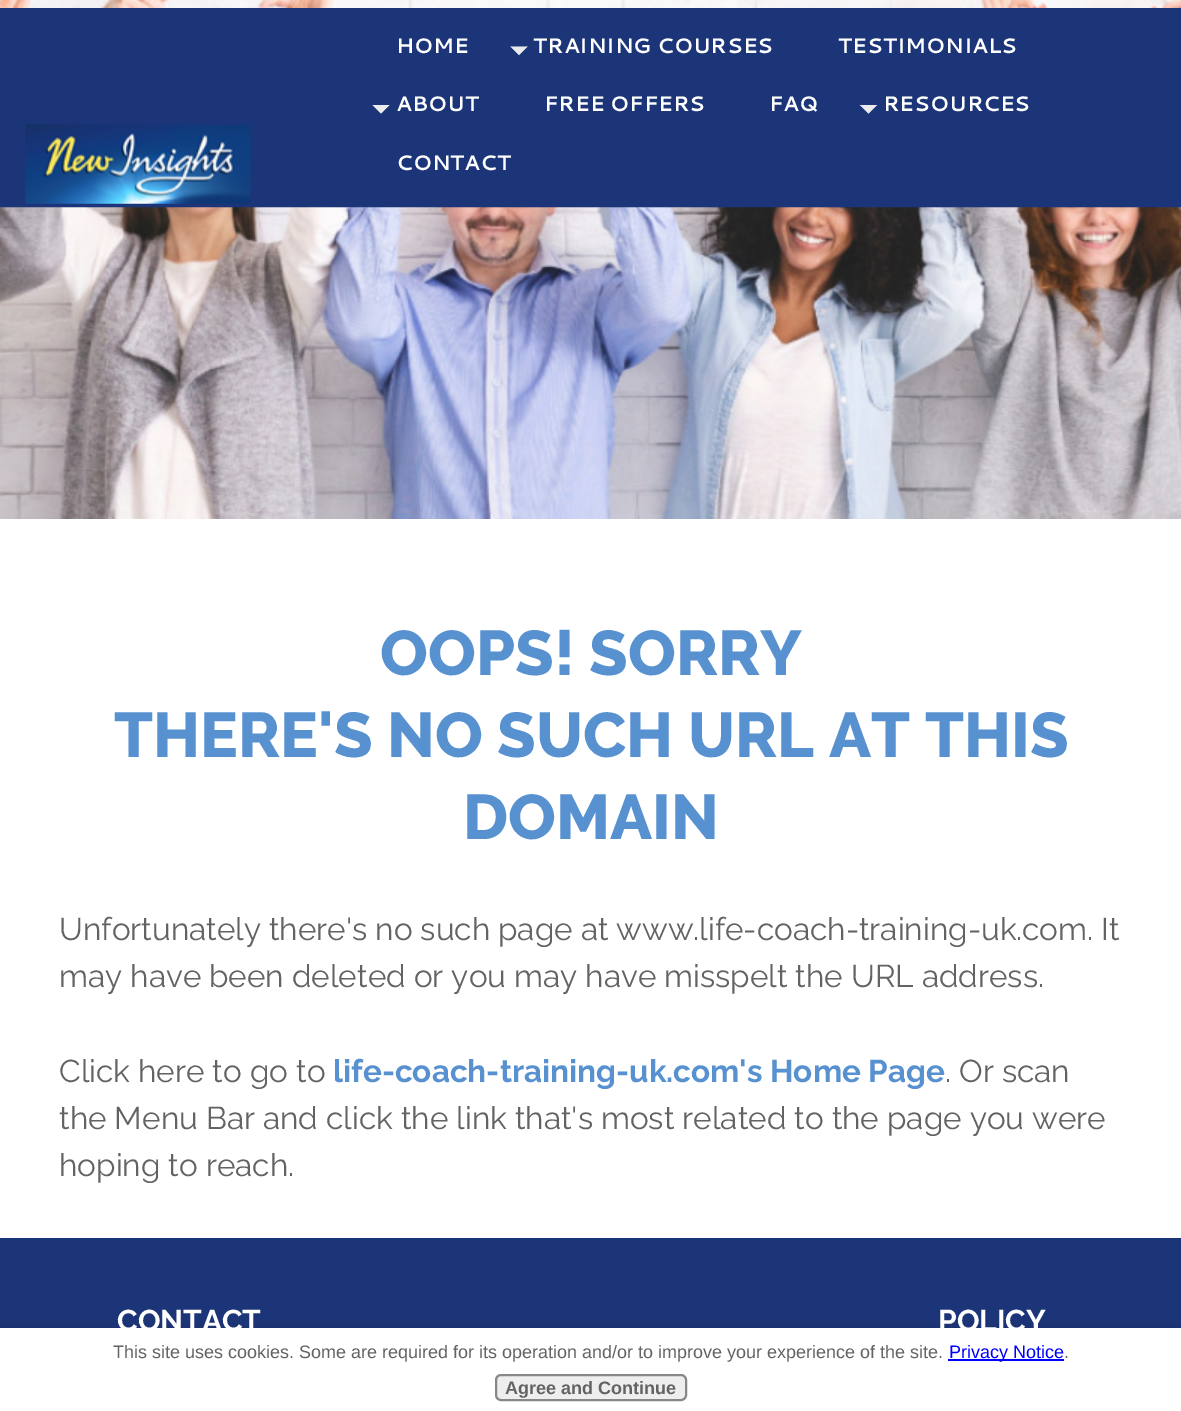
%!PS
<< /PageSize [1181 1411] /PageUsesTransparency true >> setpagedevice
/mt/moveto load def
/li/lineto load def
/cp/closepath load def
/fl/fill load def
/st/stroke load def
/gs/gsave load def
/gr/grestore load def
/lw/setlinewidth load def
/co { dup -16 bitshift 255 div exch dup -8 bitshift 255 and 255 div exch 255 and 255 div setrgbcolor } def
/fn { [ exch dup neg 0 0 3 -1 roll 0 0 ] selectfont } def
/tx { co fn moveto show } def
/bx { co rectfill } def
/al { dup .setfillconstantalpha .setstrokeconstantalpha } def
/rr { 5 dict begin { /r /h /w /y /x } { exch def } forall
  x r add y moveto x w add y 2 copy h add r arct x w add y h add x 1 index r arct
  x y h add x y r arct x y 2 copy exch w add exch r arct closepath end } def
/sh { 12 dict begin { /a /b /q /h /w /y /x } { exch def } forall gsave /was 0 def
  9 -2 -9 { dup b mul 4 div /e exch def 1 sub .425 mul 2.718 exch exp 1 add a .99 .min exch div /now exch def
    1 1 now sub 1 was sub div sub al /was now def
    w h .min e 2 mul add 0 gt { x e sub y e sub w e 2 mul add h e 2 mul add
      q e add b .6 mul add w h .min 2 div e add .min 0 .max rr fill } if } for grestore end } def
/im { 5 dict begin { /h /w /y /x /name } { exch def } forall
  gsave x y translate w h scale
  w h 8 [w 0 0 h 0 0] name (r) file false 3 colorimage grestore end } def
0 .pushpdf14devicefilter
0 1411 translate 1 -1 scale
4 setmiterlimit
0 0 1181 1411 16#FFFFFF bx
(media/1.raw) 0 0 1181 519 im
16#1C3579 co
0 8 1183 199 1.5 rr fl
(media/2.raw) 25 123 226 81 im
3 lw
1.5 9.5 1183 196 rectstroke
16#EBEBEB co
510 46.5 mt 528 46.5 li 519 55.5 li cp fl
16#1C3579 co
528 46.5 mt 528 64.5 li 519 55.5 li cp 510 64.5 mt 510 46.5 li 519 55.5 li cp fl
16#EBEBEB co
372 105 mt 390 105 li 381 114 li cp fl
16#1C3579 co
390 105 mt 390 123 li 381 114 li cp 372 123 mt 372 105 li 381 114 li cp fl
16#EBEBEB co
859.5 105 mt 877.5 105 li 868.5 114 li cp fl
16#1C3579 co
877.5 105 mt 877.5 123 li 868.5 114 li cp fl
859.5 123 mt 859.5 105 li 868.5 114 li cp fl
0 1238 1181 90 16#1C3579 bx
16#000000 co
-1 1332 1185 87 0 7.5 .2 sh
0 1328 1181 83 16#FFFFFF bx
948 1359 116 2 16#0000FF bx
16#EEEEEE co
496 1375 190 25 5 rr gs fl gr
16#888888 co
2 lw
st
(HOME) 396 53 /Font-Bold 21 16#FFFFFF tx
(TRAINING COURSES) 533 53 /Font-Bold 21 16#FFFFFF tx
(TESTIMONIALS) 838 53 /Font-Bold 21 16#FFFFFF tx
(ABOUT) 396 111 /Font-Bold 21 16#FFFFFF tx
(FREE OFFERS) 544 111 /Font-Bold 21 16#FFFFFF tx
(FAQ) 769 111 /Font-Bold 21 16#FFFFFF tx
(RESOURCES) 883 111 /Font-Bold 21 16#FFFFFF tx
(CONTACT) 396 170 /Font-Bold 21 16#FFFFFF tx
(OOPS! SORRY) 380 675 /Raleway-ExtraBold 63 16#5891CF tx
(THERE'S NO SUCH URL AT THIS) 114 757 /Raleway-ExtraBold 63 16#5891CF tx
(DOMAIN) 463 839 /Raleway-ExtraBold 63 16#5891CF tx
(Unfortunately there's no such page at www.life-coach-training-uk.com. It) 59 940 /Raleway-Thin 31.5 16#636363 tx
(may have been deleted or you may have misspelt the URL address.) 59 987 /Raleway-Thin 31.5 16#636363 tx
(Click here to go to) 59 1082 /Raleway-Thin 31.5 16#636363 tx
(life-coach-training-uk.com's Home Page) 333 1082 /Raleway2-Thin 31.5 16#5891CF tx
(. Or scan) 945 1082 /Raleway-Thin 31.5 16#636363 tx
(the Menu Bar and click the link that's most related to the page you were) 59 1129 /Raleway-Thin 31.5 16#636363 tx
(hoping to reach.) 59 1176 /Raleway-Thin 31.5 16#636363 tx
(CONTACT) 117 1331 /Raleway2-Thin 30 16#FFFFFF tx
(POLICY) 938 1331 /Raleway2-Thin 30 16#FFFFFF tx
(This site uses cookies. Some are required for its operation and/or to improve your experience of the site.) 113 1358 /LiberationSans-Regular 18 16#636363 tx
(Privacy Notice) 949 1358 /LiberationSans-Regular 18 16#0000FF tx
(.) 1064 1358 /LiberationSans-Regular 18 16#636363 tx
(Agree and Continue) 505 1394 /LiberationSans-Bold 18 16#636363 tx
.poppdf14devicefilter showpage
